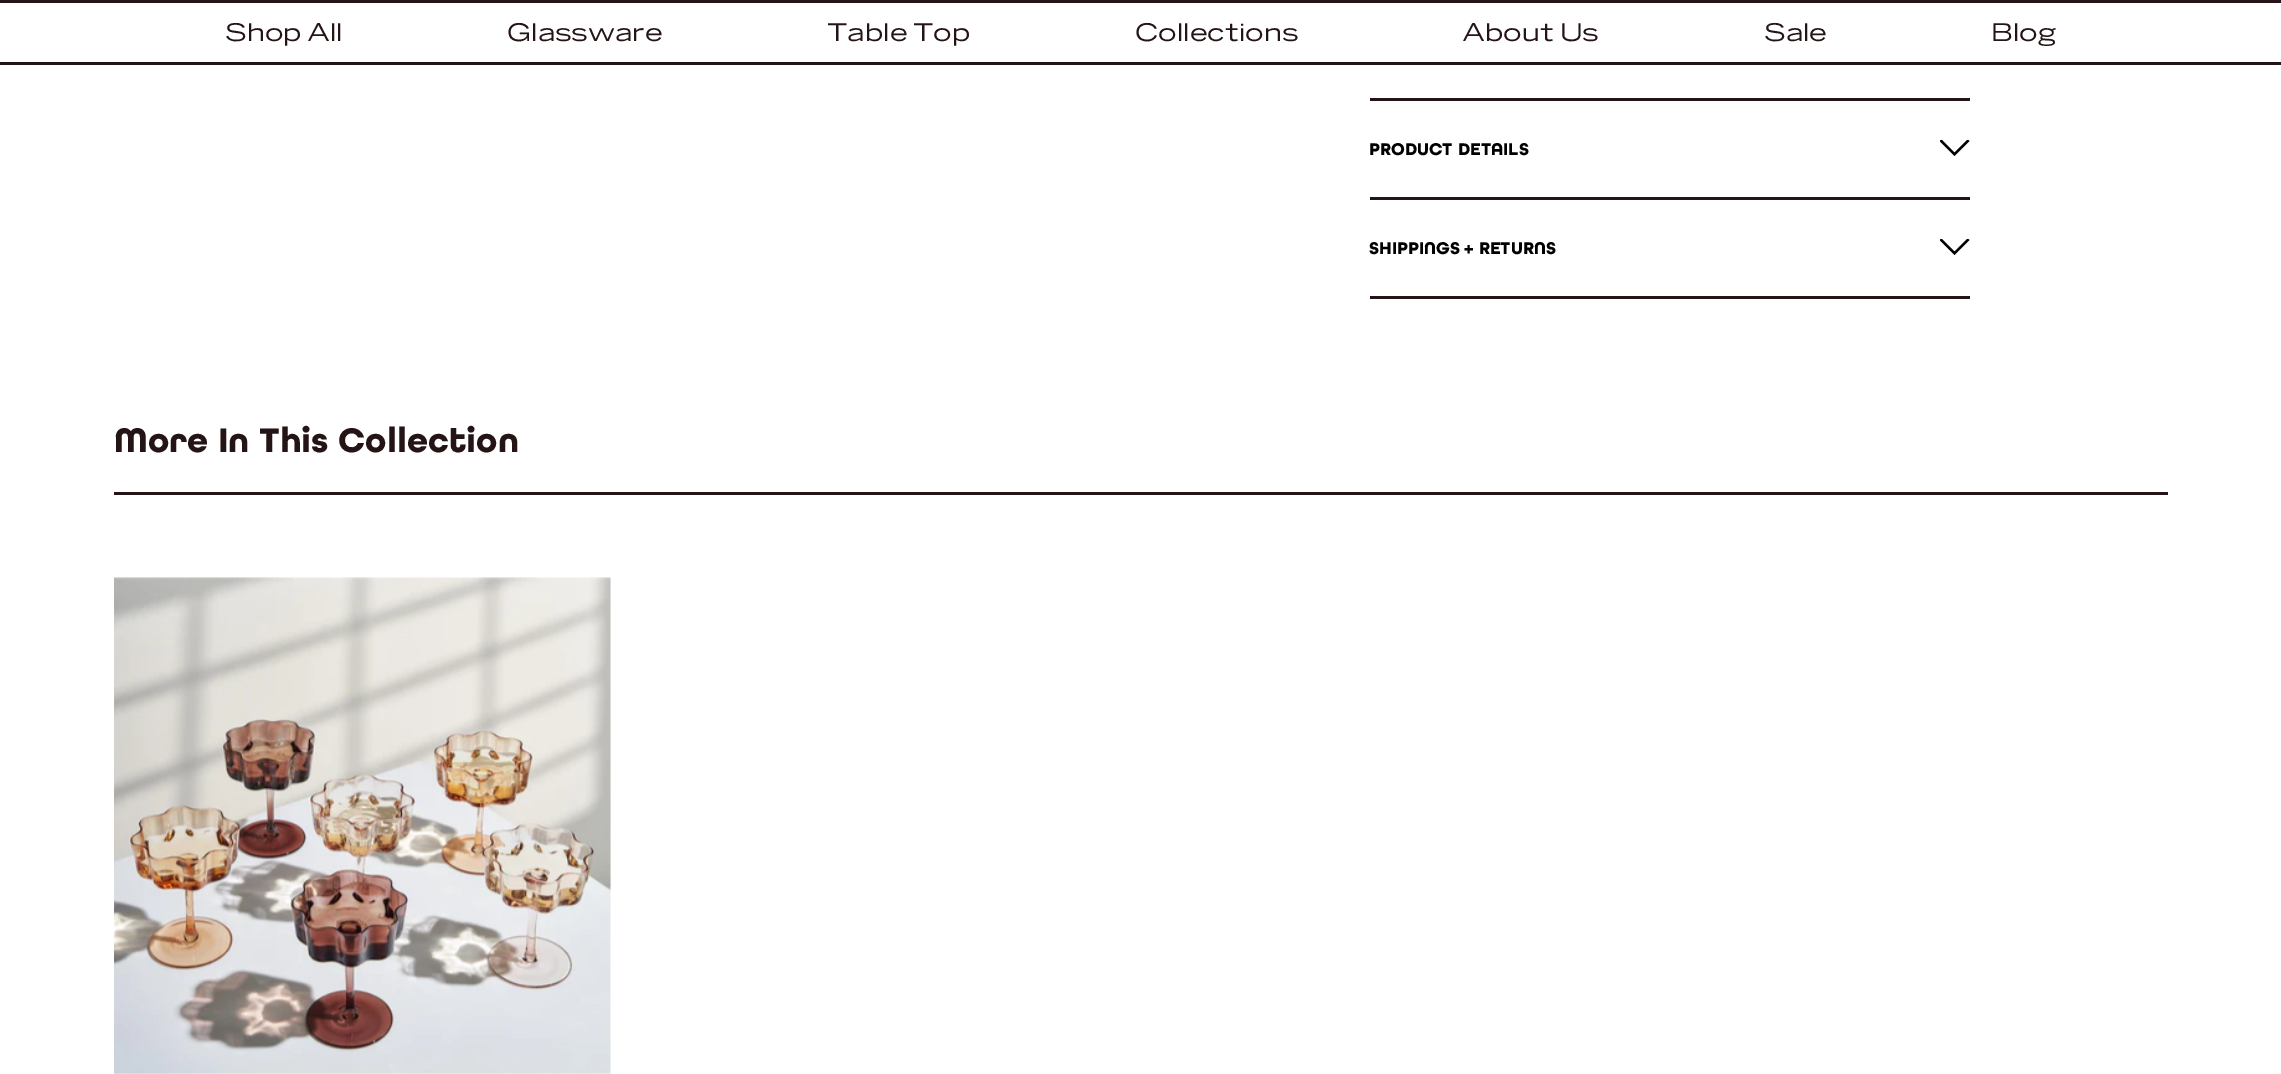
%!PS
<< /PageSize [2281 1074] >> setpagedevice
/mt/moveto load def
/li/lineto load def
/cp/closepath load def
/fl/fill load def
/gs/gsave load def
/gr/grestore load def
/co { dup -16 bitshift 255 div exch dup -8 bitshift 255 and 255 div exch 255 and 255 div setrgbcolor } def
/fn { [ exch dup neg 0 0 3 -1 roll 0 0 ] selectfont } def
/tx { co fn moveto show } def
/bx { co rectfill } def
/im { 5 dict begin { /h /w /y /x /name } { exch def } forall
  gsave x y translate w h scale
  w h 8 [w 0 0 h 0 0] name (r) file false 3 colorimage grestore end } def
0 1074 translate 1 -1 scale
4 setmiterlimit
0 0 2281 1074 16#FFFFFF bx
0 0 2281 3 16#251415 bx
0 62 2281 3 16#251415 bx
1370 98 600 3 16#251415 bx
gs
1940 140 30 18 rectclip
16#000000 co
1954.5 156 mt 1939.5 141 li 1941.5 139.5 li 1954.5 152.5 li 1967.5 139.5 li 1969.5 141 li cp fl
gr
1370 197 600 3 16#251415 bx
1370 296 600 3 16#251415 bx
gs
1940 239 30 18 rectclip
16#000000 co
1954.5 255 mt 1939.5 240 li 1941.5 238.5 li 1954.5 251.5 li 1967.5 238.5 li 1969.5 240 li cp fl
gr
114 492 2054 3 16#251415 bx
(media/1.raw) 114 577 497 497 im
(Shop All) 225 41 /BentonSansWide-Regular 24 16#251415 tx
(Glassware) 507 41 /BentonSansWide-Regular 24 16#251415 tx
(Table Top) 827 41 /BentonSansWide-Regular 24 16#251415 tx
(Collections) 1135 41 /BentonSansWide-Regular 24 16#251415 tx
(About Us) 1462 41 /BentonSansWide-Regular 24 16#251415 tx
(Sale) 1764 41 /BentonSansWide-Regular 24 16#251415 tx
(Blog) 1991 41 /BentonSansWide-Regular 24 16#251415 tx
(PRODUCT DETAILS) 1369 155 /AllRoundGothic-Bold 18 16#000000 tx
(SHIPPINGS + RETURNS) 1369 254 /AllRoundGothic-Bold 18 16#000000 tx
(More In This Collection) 114 452 /AllRoundGothic-Bold 36 16#251415 tx
showpage
